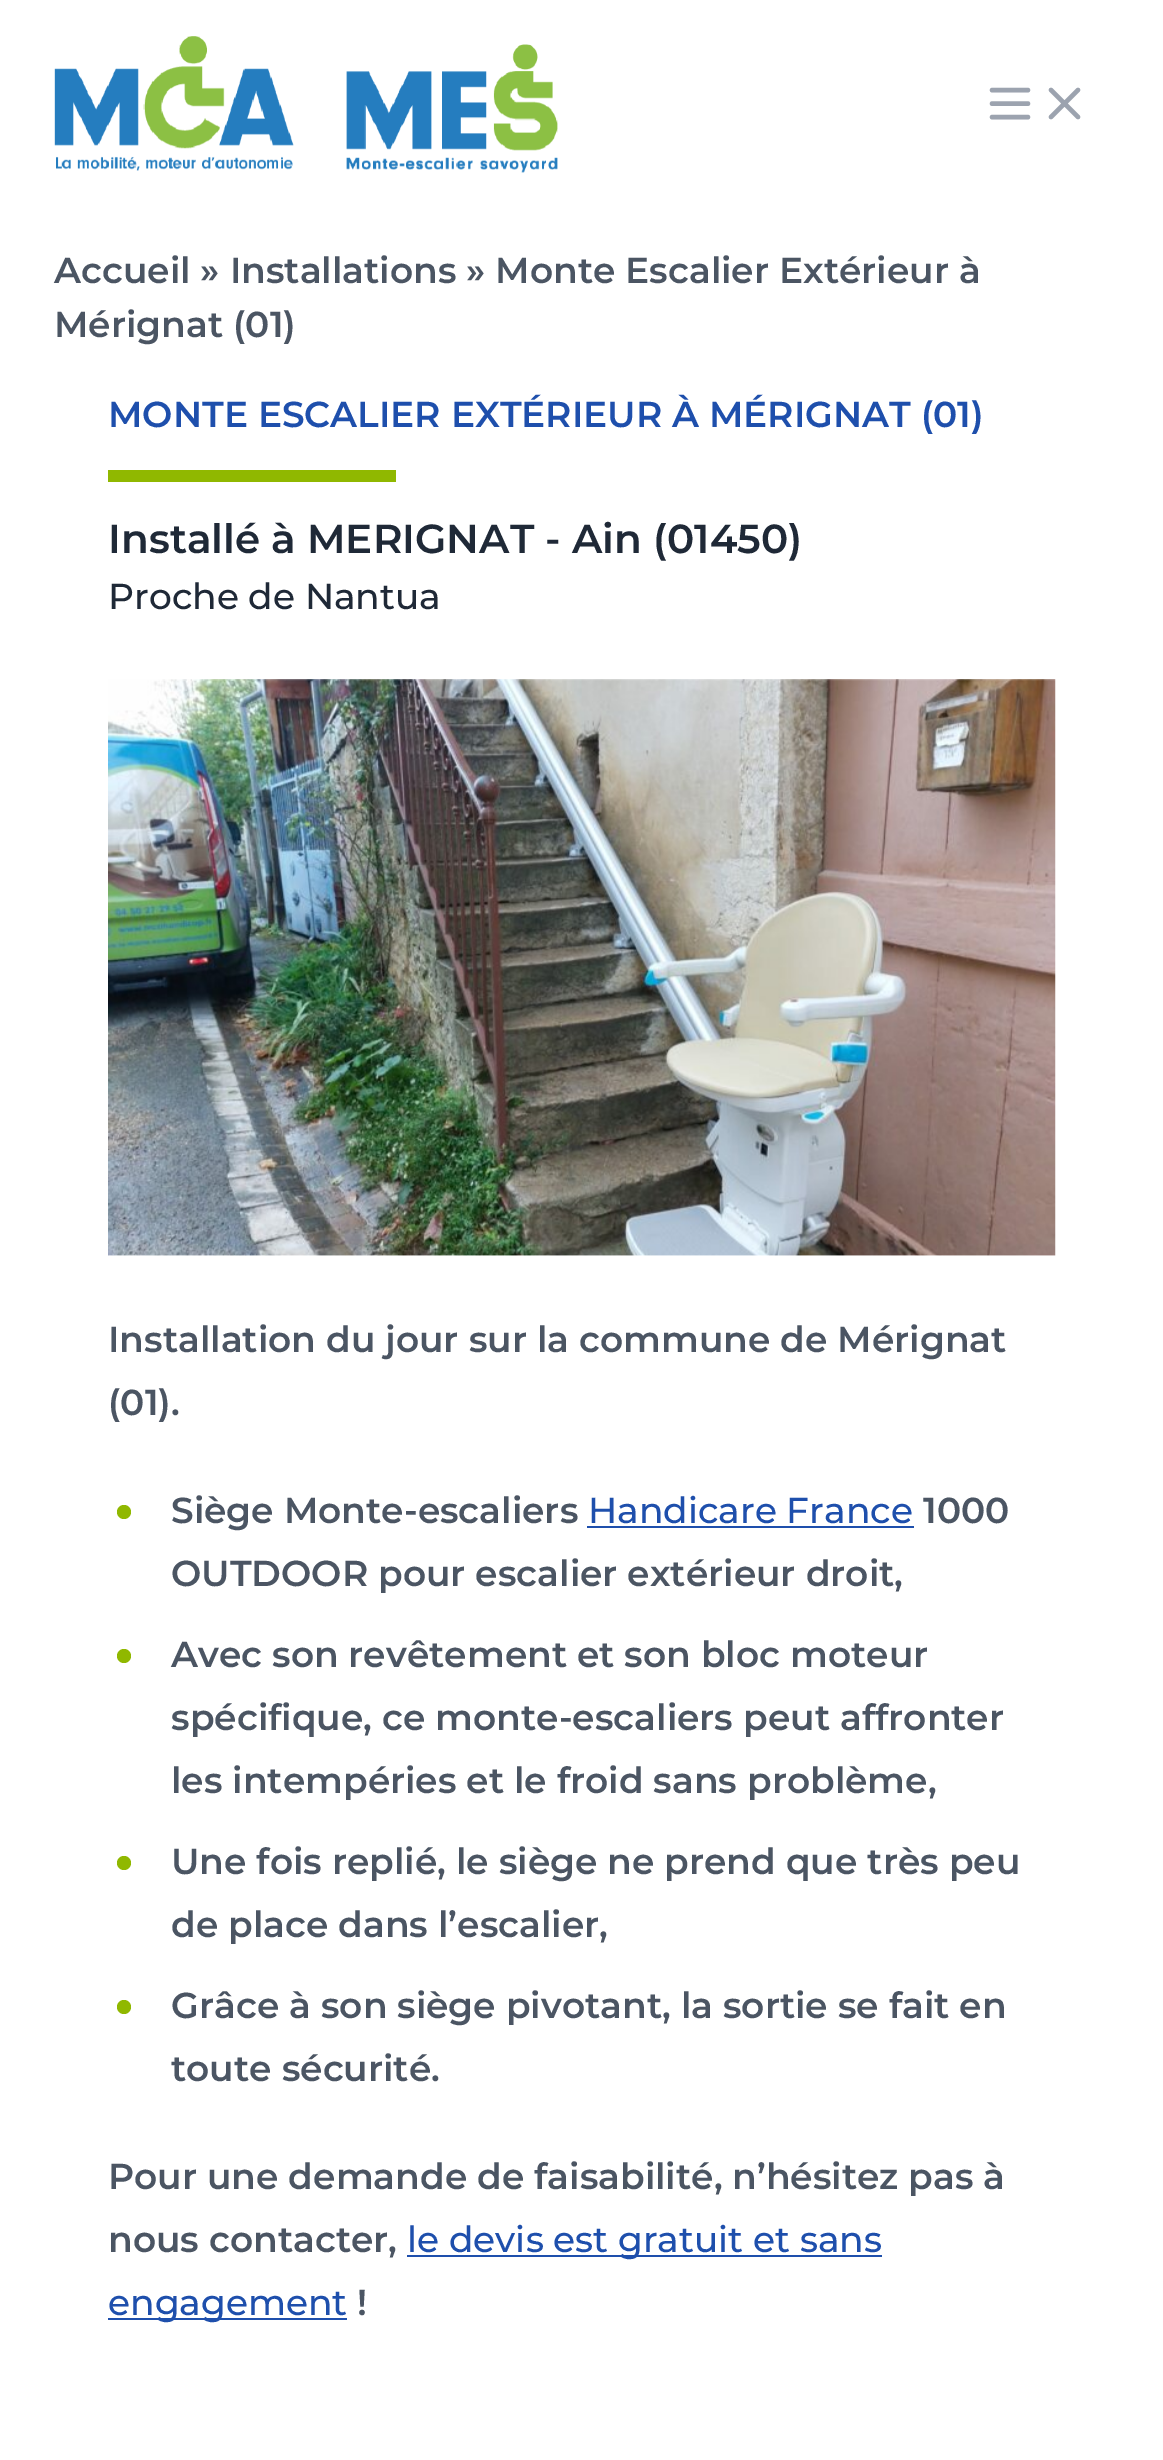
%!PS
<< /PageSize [1163 2460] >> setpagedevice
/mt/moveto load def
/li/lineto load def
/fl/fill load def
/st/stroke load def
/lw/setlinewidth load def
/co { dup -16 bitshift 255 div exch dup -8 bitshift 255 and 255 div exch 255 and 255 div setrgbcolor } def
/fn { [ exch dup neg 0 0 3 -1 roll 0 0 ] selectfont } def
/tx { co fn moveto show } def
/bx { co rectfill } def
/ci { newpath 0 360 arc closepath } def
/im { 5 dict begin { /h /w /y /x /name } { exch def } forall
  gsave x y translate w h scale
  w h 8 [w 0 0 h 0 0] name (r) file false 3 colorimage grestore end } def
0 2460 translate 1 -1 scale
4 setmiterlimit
0 0 1163 2460 16#FFFFFF bx
(media/1.raw) 54 36 504 137 im
16#9CA3AF co
4.5 lw
1 setlinecap
1 setlinejoin
992 90 mt 1028 90 li 992 103.5 mt 1028 103.5 li 992 117 mt 1028 117 li st
1051 117 mt 1078 90 li 1051 90 mt 1078 117 li st
108 470 288 12 16#90B800 bx
(media/2.raw) 108 679 948 577 im
124 1512 7 ci fl
587 1526 327 2 16#1E4FAC bx
16#90B800 co
124 1656 7 ci fl
124 1863 7 ci fl
124 2007 7 ci fl
407 2255 475 2 16#1E4FAC bx
108 2318 239 2 16#1E4FAC bx
(Accueil » Installations » Monte Escalier Extérieur à) 54 283 /Montserrat-SemiBold 36 16#4B5563 tx
(Mérignat \(01\)) 54 337 /Montserrat-SemiBold 36 16#4B5563 tx
(MONTE ESCALIER EXTÉRIEUR À MÉRIGNAT \(01\)) 108 427 /Montserrat-SemiBold 36 16#1E4FAC tx
(Installé à MERIGNAT - Ain \(01450\)) 108 553 /Montserrat-SemiBold 40.5 16#1F2937 tx
(Proche de Nantua) 108 609 /Montserrat-Medium 36 16#1F2937 tx
(Installation du jour sur la commune de Mérignat) 108 1352 /Montserrat-SemiBold 36 16#4B5563 tx
(\(01\).) 108 1415 /Montserrat-SemiBold 36 16#4B5563 tx
(Siège Monte-escaliers) 171 1523 /Montserrat-SemiBold 36 16#4B5563 tx
(Handicare France) 588 1523 /Montserrat-Medium 36 16#1E4FAC tx
(1000) 923 1523 /Montserrat-SemiBold 36 16#4B5563 tx
(OUTDOOR pour escalier extérieur droit,) 171 1586 /Montserrat-SemiBold 36 16#4B5563 tx
(Avec son revêtement et son bloc moteur) 171 1667 /Montserrat-SemiBold 36 16#4B5563 tx
(spécifique, ce monte-escaliers peut affronter) 171 1730 /Montserrat-SemiBold 36 16#4B5563 tx
(les intempéries et le froid sans problème,) 171 1793 /Montserrat-SemiBold 36 16#4B5563 tx
(Une fois replié, le siège ne prend que très peu) 171 1874 /Montserrat-SemiBold 36 16#4B5563 tx
(de place dans l’escalier,) 171 1937 /Montserrat-SemiBold 36 16#4B5563 tx
(Grâce à son siège pivotant, la sortie se fait en) 171 2018 /Montserrat-SemiBold 36 16#4B5563 tx
(toute sécurité.) 171 2081 /Montserrat-SemiBold 36 16#4B5563 tx
(Pour une demande de faisabilité, n’hésitez pas à) 108 2189 /Montserrat-SemiBold 36 16#4B5563 tx
(nous contacter,) 108 2252 /Montserrat-SemiBold 36 16#4B5563 tx
(le devis est gratuit et sans) 407 2252 /Montserrat-Medium 36 16#1E4FAC tx
(engagement) 108 2315 /Montserrat-Medium 36 16#1E4FAC tx
(!) 357 2315 /Montserrat-SemiBold 36 16#4B5563 tx
showpage
